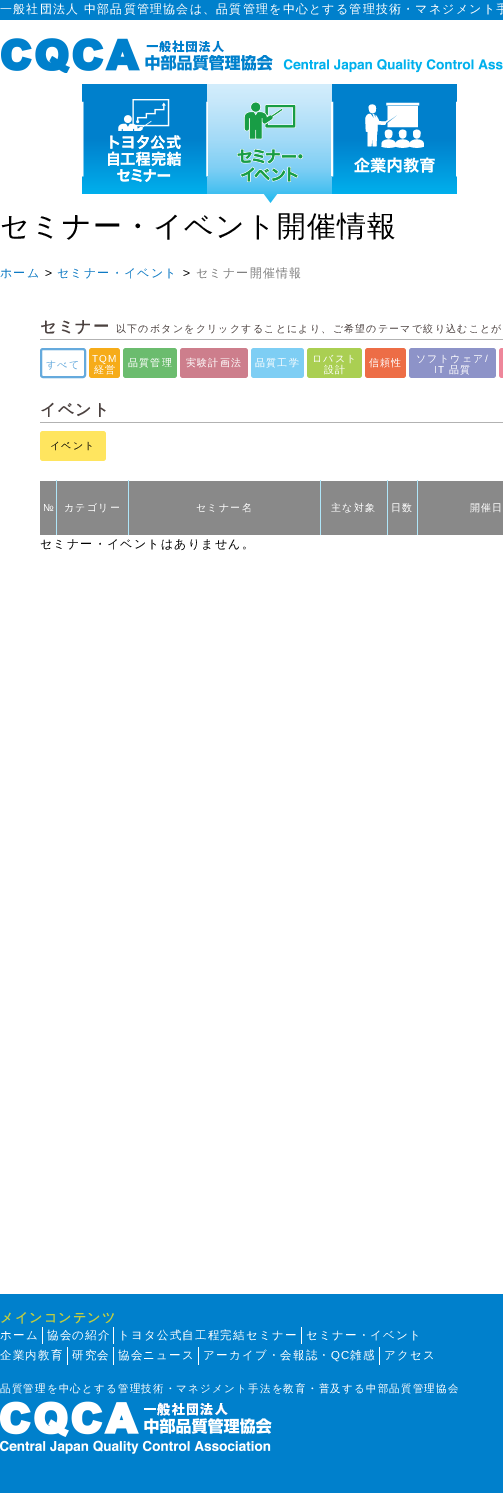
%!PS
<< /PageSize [503 1493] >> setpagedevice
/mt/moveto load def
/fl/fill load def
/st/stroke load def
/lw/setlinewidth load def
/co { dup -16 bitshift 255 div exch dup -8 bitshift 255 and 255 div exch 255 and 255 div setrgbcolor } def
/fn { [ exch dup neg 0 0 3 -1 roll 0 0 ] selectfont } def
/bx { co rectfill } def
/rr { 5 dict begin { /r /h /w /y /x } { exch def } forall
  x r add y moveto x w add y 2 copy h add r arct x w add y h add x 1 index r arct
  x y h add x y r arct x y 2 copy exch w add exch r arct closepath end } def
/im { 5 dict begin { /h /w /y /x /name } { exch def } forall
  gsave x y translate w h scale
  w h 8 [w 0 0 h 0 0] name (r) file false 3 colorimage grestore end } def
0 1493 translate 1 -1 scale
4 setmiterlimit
0 0 503 1493 16#0080CC bx
0 20 503 1274 16#FFFFFF bx
(media/1.raw) 1 38 502 35 im
(media/2.raw) 82 84 125 110 im
(media/3.raw) 207 84 125 119 im
(media/4.raw) 332 84 125 110 im
40 339 463 1 16#B2B2B2 bx
16#65AADD co
2 lw
41 349 44 28 2 rr st
16#F6AC19 co
89 348 31 30 3 rr fl
16#6BBC6E co
123 348 54 30 3 rr fl
16#CD7E8C co
180 348 68 30 3 rr fl
16#7ECEF4 co
251 348 53 30 3 rr fl
16#AACF52 co
307 348 55 30 3 rr fl
16#ED6D46 co
365 348 41 30 3 rr fl
16#8D93C8 co
409 348 87 30 3 rr fl
16#EE869A co
499 348 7 30 3 rr fl
40 422 463 1 16#B2B2B2 bx
16#FFE55F co
40 431 66 30 3 rr fl
40 481 16 54 16#898989 bx
56 480 1 55 16#AFE6F9 bx
57 481 71 54 16#898989 bx
128 480 1 55 16#AFE6F9 bx
129 481 191 54 16#898989 bx
320 480 1 55 16#AFE6F9 bx
321 481 66 54 16#898989 bx
387 480 1 55 16#AFE6F9 bx
388 481 29 54 16#898989 bx
417 480 1 55 16#AFE6F9 bx
418 481 85 54 16#898989 bx
42 1327 1 17 16#FFFFFF bx
113 1327 1 17 16#FFFFFF bx
301 1327 1 17 16#FFFFFF bx
67 1347 1 18 16#FFFFFF bx
113 1347 1 18 16#FFFFFF bx
198 1347 1 18 16#FFFFFF bx
379 1347 1 18 16#FFFFFF bx
(media/5.raw) 0 1401 272 53 im
/WenQuanYiZenHei-Medium 12 fn
0 13 mt 1.2 0 (一般社団法人 中部品質管理協会は、品質管理を中心とする管理技術・マネジメント手) ashow
/WenQuanYiZenHei-Medium 29 fn
16#000000 co
0 236 mt 1.2 0 (セミナー・イベント開催情報) ashow
/WenQuanYiZenHei-Medium 12 fn
16#0E7AC4 co
0 277 mt 1.2 0 (ホーム) ashow
/LiberationSans-Regular 12 fn
16#000000 co
45 277 mt 1.2 0 (>) ashow
/WenQuanYiZenHei-Medium 12 fn
16#0E7AC4 co
57 277 mt 1.2 0 (セミナー・イベント) ashow
/LiberationSans-Regular 12 fn
16#000000 co
183 277 mt 1.2 0 (>) ashow
/WenQuanYiZenHei-Medium 12 fn
16#808080 co
196 277 mt 1.2 0 (セミナー開催情報) ashow
/WenQuanYiZenHei-Bold 16 fn
16#4B413F co
40 332 mt 1.2 0 (セミナー) ashow
/WenQuanYiZenHei-Medium 10 fn
116 332 mt 1.2 0 (以下のボタンをクリックすることにより、ご希望のテーマで絞り込むことが) ashow
16#65AADD co
46 368 mt 1.2 0 (すべて) ashow
/LiberationSans-Regular 10 fn
16#FFFFFF co
92 362 mt 1.2 0 (TQM) ashow
/WenQuanYiZenHei-Medium 10 fn
94 373 mt 1.2 0 (経営) ashow
128 366 mt 1.2 0 (品質管理) ashow
186 366 mt 1.2 0 (実験計画法) ashow
255 366 mt 1.2 0 (品質工学) ashow
312 362 mt 1.2 0 (ロバスト) ashow
324 373 mt 1.2 0 (設計) ashow
369 366 mt 1.2 0 (信頼性) ashow
416 362 mt 1.2 0 (ソフトウェア) ashow
/LiberationSans-Regular 10 fn
485 362 mt 1.2 0 (/) ashow
434 373 mt 1.2 0 (IT) ashow
/WenQuanYiZenHei-Medium 10 fn
449 373 mt 1.2 0 (品質) ashow
/WenQuanYiZenHei-Bold 16 fn
16#4B413F co
40 415 mt 1.2 0 (イベント) ashow
/WenQuanYiZenHei-Medium 10 fn
16#000000 co
50 449 mt 1.2 0 (イベント) ashow
/LiberationSans-Regular 10 fn
16#FFFFFF co
43 511 mt 1.2 0 (№) ashow
/WenQuanYiZenHei-Medium 10 fn
64 511 mt 1.2 0 (カテゴリー) ashow
196 511 mt 1.2 0 (セミナー名) ashow
331 511 mt 1.2 0 (主な対象) ashow
391 511 mt 1.2 0 (日数) ashow
470 511 mt 1.2 0 (開催日) ashow
/WenQuanYiZenHei-Medium 12 fn
16#000000 co
40 548 mt 1.2 0 (セミナー・イベントはありません。) ashow
/WenQuanYiZenHei-Bold 13 fn
16#C4CE3F co
0 1322 mt 1.2 0 (メインコンテンツ) ashow
/WenQuanYiZenHei-Medium 11.5 fn
16#FFFFFF co
0 1339 mt 1.2 0 (ホーム) ashow
47 1339 mt 1.2 0 (協会の紹介) ashow
118 1339 mt 1.2 0 (トヨタ公式自工程完結セミナー) ashow
306 1339 mt 1.2 0 (セミナー・イベント) ashow
0 1359 mt 1.2 0 (企業内教育) ashow
72 1359 mt 1.2 0 (研究会) ashow
118 1359 mt 1.2 0 (協会ニュース) ashow
203 1359 mt 1.2 0 (アーカイブ・会報誌・) ashow
/LiberationSans-Regular 11.5 fn
331 1359 mt 1.2 0 (QC) ashow
/WenQuanYiZenHei-Medium 11.5 fn
350 1359 mt 1.2 0 (雑感) ashow
384 1359 mt 1.2 0 (アクセス) ashow
/WenQuanYiZenHei-Medium 10.5 fn
0 1392 mt 1.2 0 (品質管理を中心とする管理技術・マネジメント手法を教育・普及する中部品質管理協会) ashow
showpage
